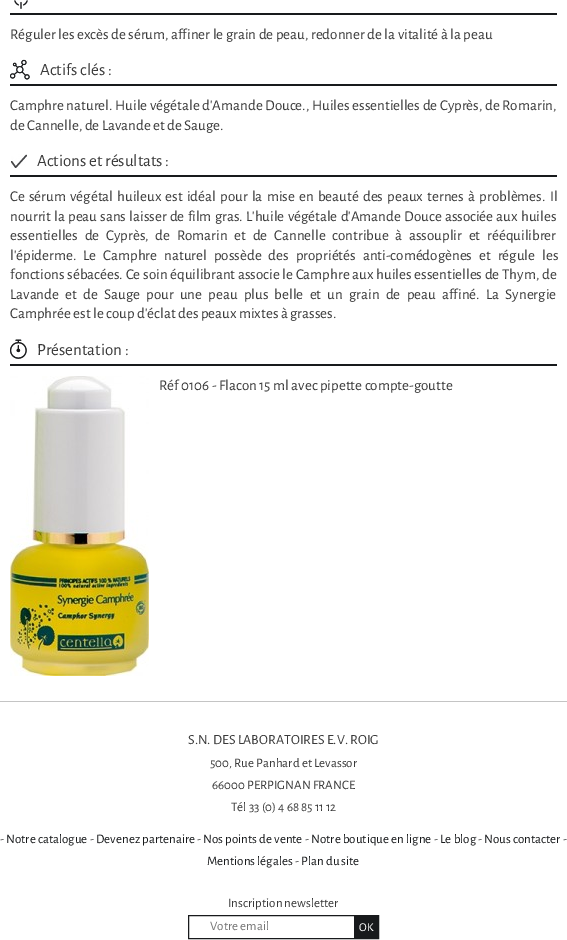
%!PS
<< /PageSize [567 940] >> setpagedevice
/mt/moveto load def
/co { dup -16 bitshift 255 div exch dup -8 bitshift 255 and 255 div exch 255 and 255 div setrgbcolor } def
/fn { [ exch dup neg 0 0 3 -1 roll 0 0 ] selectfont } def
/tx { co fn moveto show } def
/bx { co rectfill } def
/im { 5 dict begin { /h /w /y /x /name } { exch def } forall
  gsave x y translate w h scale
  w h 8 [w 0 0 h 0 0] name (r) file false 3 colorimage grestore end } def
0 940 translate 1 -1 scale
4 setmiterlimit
0 0 567 940 16#FFFFFF bx
0 701 567 1 16#C4C4C4 bx
10 13 547 2 16#181A1C bx
(media/1.raw) 14 0 14 9 im
10 84 547 2 16#181A1C bx
(media/2.raw) 10 59 20 21 im
10 175 547 2 16#181A1C bx
(media/3.raw) 11 154 16 14 im
10 364 547 2 16#181A1C bx
(media/4.raw) 10 339 17 20 im
(media/5.raw) 10 376 139 300 im
188.5 915.5 190 23 rectstroke
354 916 24 22 16#181A1C bx
(Réguler les excès de sérum, affiner le grain de peau, redonner de la vitalité à la peau) 10 39 /AlegreyaSans-Regular 15 16#3A3A3A tx
(Actifs clés :) 40 75 /AlegreyaSans-Regular 17 16#3A3A3A tx
/AlegreyaSans-Regular 15 fn
10 110 mt .1 0 32 (Camphre naturel. Huile végétale d'Amande Douce., Huiles essentielles de Cyprès, de Romarin,) widthshow
(de Cannelle, de Lavande et de Sauge.) 10 130 /AlegreyaSans-Regular 15 16#3A3A3A tx
(Actions et résultats :) 37 166 /AlegreyaSans-Regular 17 16#3A3A3A tx
/AlegreyaSans-Regular 15 fn
10 201 mt 1.75 0 32 (Ce sérum végétal huileux est idéal pour la mise en beauté des peaux ternes à problèmes. Il) widthshow
10 221 mt .75 0 32 (nourrit la peau sans laisser de film gras. L'huile végétale d'Amande Douce associée aux huiles) widthshow
10 240 mt 4.25 0 32 (essentielles de Cyprès, de Romarin et de Cannelle contribue à assouplir et rééquilibrer) widthshow
10 260 mt 4.5 0 32 (l'épiderme. Le Camphre naturel possède des propriétés anti-comédogènes et régule les) widthshow
10 279 mt .25 0 32 (fonctions sébacées. Ce soin équilibrant associe le Camphre aux huiles essentielles de Thym, de) widthshow
10 299 mt 3.75 0 32 (Lavande et de Sauge pour une peau plus belle et un grain de peau affiné. La Synergie) widthshow
(Camphrée est le coup d'éclat des peaux mixtes à grasses.) 10 318 /AlegreyaSans-Regular 15 16#3A3A3A tx
(Présentation :) 37 355 /AlegreyaSans-Regular 17 16#3A3A3A tx
(Réf 0106 - Flacon 15 ml avec pipette compte-goutte) 159 390 /AlegreyaSans-Regular 15 16#3A3A3A tx
(S.N. DES LABORATOIRES E.V. ROIG) 188 744 /AlegreyaSans-Regular 14 16#3A3A3A tx
(500, Rue Panhard et Levassor) 210 767 /AlegreyaSans-Regular 13 16#3A3A3A tx
(66000 PERPIGNAN FRANCE) 212 789 /AlegreyaSans-Regular 13 16#3A3A3A tx
(Tél 33 \(0\) 4 68 85 11 12) 231 811 /AlegreyaSans-Regular 13 16#3A3A3A tx
(-) 0 843 /AlegreyaSans-Regular 13 16#3A3A3A tx
(Notre catalogue) 6 843 /AlegreyaSans-Regular 13 16#181A1C tx
(-) 90 843 /AlegreyaSans-Regular 13 16#3A3A3A tx
(Devenez partenaire) 96 843 /AlegreyaSans-Regular 13 16#181A1C tx
(-) 197 843 /AlegreyaSans-Regular 13 16#3A3A3A tx
(Nos points de vente) 203 843 /AlegreyaSans-Regular 13 16#181A1C tx
(-) 305 843 /AlegreyaSans-Regular 13 16#3A3A3A tx
(Notre boutique en ligne) 311 843 /AlegreyaSans-Regular 13 16#181A1C tx
(-) 434 843 /AlegreyaSans-Regular 13 16#3A3A3A tx
(Le blog) 440 843 /AlegreyaSans-Regular 13 16#181A1C tx
(-) 478 843 /AlegreyaSans-Regular 13 16#3A3A3A tx
(Nous contacter) 484 843 /AlegreyaSans-Regular 13 16#181A1C tx
(-) 563 843 /AlegreyaSans-Regular 13 16#3A3A3A tx
(Mentions légales) 207 865 /AlegreyaSans-Regular 13 16#181A1C tx
(-) 295 865 /AlegreyaSans-Regular 13 16#3A3A3A tx
(Plan du site) 301 865 /AlegreyaSans-Regular 13 16#181A1C tx
(Inscription newsletter) 228 907 /AlegreyaSans-Regular 13 16#3A3A3A tx
(Votre email) 210 930 /AlegreyaSans-Regular 13 16#757575 tx
(OK) 359 931 /AlegreyaSans-Regular 12 16#FFFFFF tx
showpage
